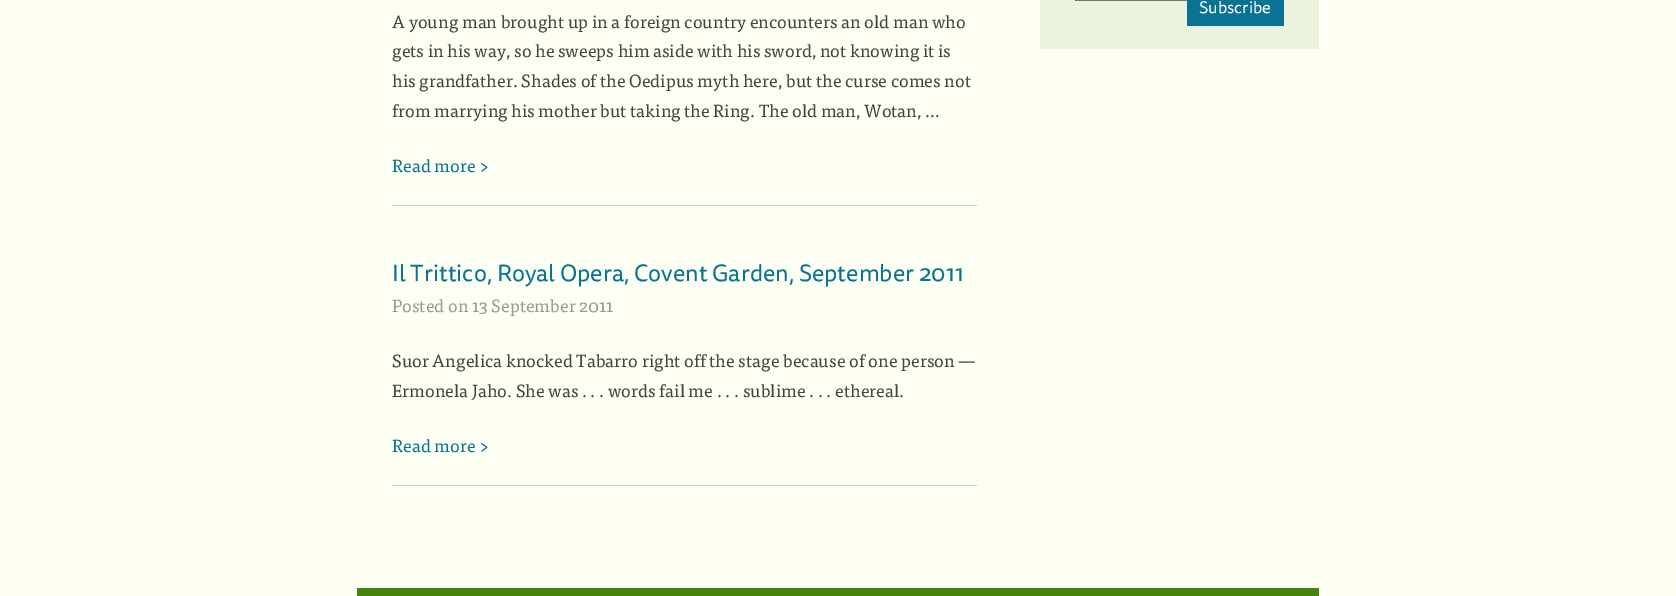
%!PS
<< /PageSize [1676 596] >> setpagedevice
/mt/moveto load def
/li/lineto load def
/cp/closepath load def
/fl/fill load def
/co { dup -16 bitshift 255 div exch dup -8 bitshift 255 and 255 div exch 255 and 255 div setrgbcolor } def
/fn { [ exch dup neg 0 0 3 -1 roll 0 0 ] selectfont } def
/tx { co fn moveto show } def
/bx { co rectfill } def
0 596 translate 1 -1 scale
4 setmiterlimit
0 0 1676 596 16#FCFFF2 bx
1040 0 279 49 16#EBF3DE bx
16#767676 co
1281 1 mt 1075 1 li 1077 -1 li 1279 -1 li cp fl
16#4F4F4F co
1075 1 mt 1075 -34 li 1077 -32 li 1077 -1 li cp fl
1187 0 97 26 16#0A7393 bx
392 205 585 1 16#CCCCCC bx
392 485 585 1 16#CCCCCC bx
357 588 962 8 16#45830C bx
(Subscribe) 1199 13 /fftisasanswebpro-Regular 16.5 16#FFFFFF tx
(A young man brought up in a foreign country encounters an old man who) 392 28 /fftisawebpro-Regular 17.6 16#444444 tx
(gets in his way, so he sweeps him aside with his sword, not knowing it is) 392 57 /fftisawebpro-Regular 17.6 16#444444 tx
(his grandfather. Shades of the Oedipus myth here, but the curse comes not) 392 87 /fftisawebpro-Regular 17.6 16#444444 tx
(from marrying his mother but taking the Ring. The old man, Wotan, …) 392 117 /fftisawebpro-Regular 17.6 16#444444 tx
(Read more >) 392 172 /fftisawebpro-Regular 17.6 16#0A7393 tx
(Il Trittico, Royal Opera, Covent Garden, September 2011) 392 281 /fftisasanswebpro-Regular 23.4 16#0A7393 tx
(Posted on 13 September 2011) 392 312 /fftisawebpro-Regular 17.6 16#999999 tx
(Suor Angelica knocked Tabarro right off the stage because of one person —) 392 367 /fftisawebpro-Regular 17.6 16#444444 tx
(Ermonela Jaho. She was . . . words fail me . . . sublime . . . ethereal.) 392 397 /fftisawebpro-Regular 17.6 16#444444 tx
(Read more >) 392 452 /fftisawebpro-Regular 17.6 16#0A7393 tx
showpage
